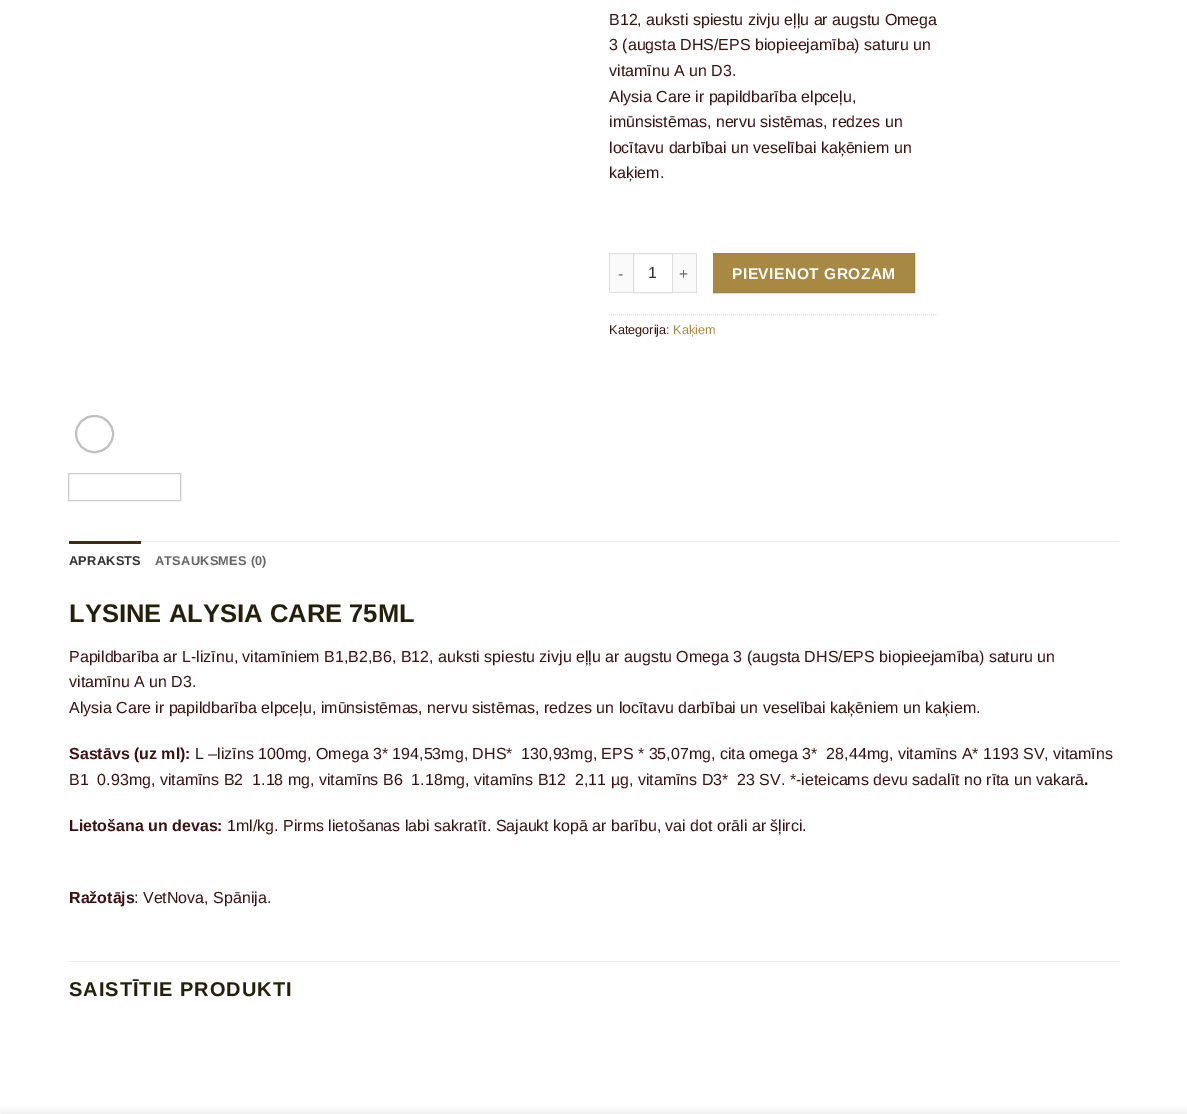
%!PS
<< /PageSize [1187 1114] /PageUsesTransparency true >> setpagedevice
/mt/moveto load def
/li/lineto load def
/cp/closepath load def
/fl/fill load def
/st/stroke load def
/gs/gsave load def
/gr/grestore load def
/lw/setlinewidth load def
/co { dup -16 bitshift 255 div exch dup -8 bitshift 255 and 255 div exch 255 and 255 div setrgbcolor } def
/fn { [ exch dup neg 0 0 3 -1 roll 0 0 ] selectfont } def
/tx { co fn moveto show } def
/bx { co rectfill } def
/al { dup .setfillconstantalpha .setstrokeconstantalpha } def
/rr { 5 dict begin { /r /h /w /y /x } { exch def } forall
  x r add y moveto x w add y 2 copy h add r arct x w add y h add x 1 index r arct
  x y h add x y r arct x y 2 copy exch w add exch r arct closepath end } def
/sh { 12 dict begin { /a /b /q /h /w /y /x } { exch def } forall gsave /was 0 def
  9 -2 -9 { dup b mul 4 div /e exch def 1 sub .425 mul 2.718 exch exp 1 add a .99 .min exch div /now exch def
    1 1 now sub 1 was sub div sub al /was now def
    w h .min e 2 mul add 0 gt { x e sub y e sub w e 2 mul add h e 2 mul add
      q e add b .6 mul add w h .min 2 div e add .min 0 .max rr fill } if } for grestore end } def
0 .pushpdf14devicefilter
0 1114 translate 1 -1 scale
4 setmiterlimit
0 0 1187 1114 16#FFFFFF bx
610 254 23 38 16#F9F9F9 bx
609 253 24 1 16#DDDDDD bx
609 292 24 1 16#DDDDDD bx
609 253 1 40 16#DDDDDD bx
633.5 253.5 39 39 rectstroke
673 254 23 38 16#F9F9F9 bx
673 253 24 1 16#DDDDDD bx
696 253 1 40 16#DDDDDD bx
673 292 24 1 16#DDDDDD bx
16#A88944 co
713.5 253.5 mt 914.5 253.5 li 914.5 292.5 li 713.5 292.5 li cp gs fl gr
16#A08241 co
st
16#DDDDDD co
[1 1] 0 setdash
609 314.5 mt 939 314.5 li st
16#C0C0C0 co
2 lw
[] 0 setdash
76 416 37 36 18 rr st
16#CCCCCC co
1 lw
68.5 473.5 112 27 rectstroke
141 541 978 1 16#ECECEC bx
69 541 72 3 16#3C2D13 bx
69 961 1050 1 16#ECECEC bx
16#000000 co
0 1114 1187 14 0 4.5 .14 sh
(B12, auksti spiestu zivju eļļu ar augstu Omega) 609 25 /LiberationSans-Regular 16 16#3B1111 tx
(3 \(augsta DHS/EPS biopieejamība\) saturu un) 609 50 /LiberationSans-Regular 16 16#3B1111 tx
(vitamīnu A un D3.) 609 76 /LiberationSans-Regular 16 16#3B1111 tx
(Alysia Care ir papildbarība elpceļu,) 609 102 /LiberationSans-Regular 16 16#3B1111 tx
(imūnsistēmas, nervu sistēmas, redzes un) 609 127 /LiberationSans-Regular 16 16#3B1111 tx
(locītavu darbībai un veselībai kaķēniem un) 609 153 /LiberationSans-Regular 16 16#3B1111 tx
(kaķiem.) 609 178 /LiberationSans-Regular 16 16#3B1111 tx
/LiberationSans-Regular 15.5 fn
16#666666 co
618 279 mt .5 0 (-) ashow
(1) 648 278 /LiberationSans-Regular 16 16#333333 tx
/LiberationSans-Regular 15.5 fn
16#666666 co
679 279 mt .5 0 (+) ashow
/LiberationSans-Bold 15.5 fn
16#FFFFFF co
732 279 mt .5 0 (PIEVIENOT GROZAM) ashow
(Kategorija:) 609 334 /LiberationSans-Regular 12.75 16#3B1111 tx
(Kaķiem) 673 334 /LiberationSans-Regular 12.75 16#A88944 tx
/LiberationSans-Bold 12.75 fn
16#333333 co
69 565 mt .25 0 (APRAKSTS) ashow
16#666666 co
155 565 mt .25 0 (ATSAUKSMES \(0\)) ashow
(LYSINE ALYSIA CARE 75ML) 69 622 /LiberationSans-Bold 25.6 16#24200C tx
(Papildbarība ar L-lizīnu, vitamīniem B1,B2,B6, B12, auksti spiestu zivju eļļu ar augstu Omega 3 \(augsta DHS/EPS biopieejamība\) saturu un) 69 662 /LiberationSans-Regular 16 16#3B1111 tx
(vitamīnu A un D3.) 69 687 /LiberationSans-Regular 16 16#3B1111 tx
(Alysia Care ir papildbarība elpceļu, imūnsistēmas, nervu sistēmas, redzes un locītavu darbībai un veselībai kaķēniem un kaķiem.) 69 713 /LiberationSans-Regular 16 16#3B1111 tx
(Sastāvs \(uz ml\):) 69 759 /LiberationSans-Bold 16 16#3B1111 tx
(L –lizīns 100mg, Omega 3* 194,53mg, DHS*  130,93mg, EPS * 35,07mg, cita omega 3*  28,44mg, vitamīns A* 1193 SV, vitamīns) 195 759 /LiberationSans-Regular 16 16#3B1111 tx
(B1  0.93mg, vitamīns B2  1.18 mg, vitamīns B6  1.18mg, vitamīns B12  2,11 µg, vitamīns D3*  23 SV. *-ieteicams devu sadalīt no rīta un vakarā) 69 785 /LiberationSans-Regular 16 16#3B1111 tx
(.) 1084 785 /LiberationSans-Bold 16 16#3B1111 tx
(Lietošana un devas:) 69 831 /LiberationSans-Bold 16 16#3B1111 tx
(1ml/kg. Pirms lietošanas labi sakratīt. Sajaukt kopā ar barību, vai dot orāli ar šļirci.) 227 831 /LiberationSans-Regular 16 16#3B1111 tx
(Ražotājs) 69 903 /LiberationSans-Bold 16 16#3B1111 tx
(: VetNova, Spānija.) 134 903 /LiberationSans-Regular 16 16#3B1111 tx
/LiberationSans-Bold 20 fn
16#24200C co
69 996 mt 1 0 (SAISTĪTIE PRODUKTI) ashow
.poppdf14devicefilter showpage
